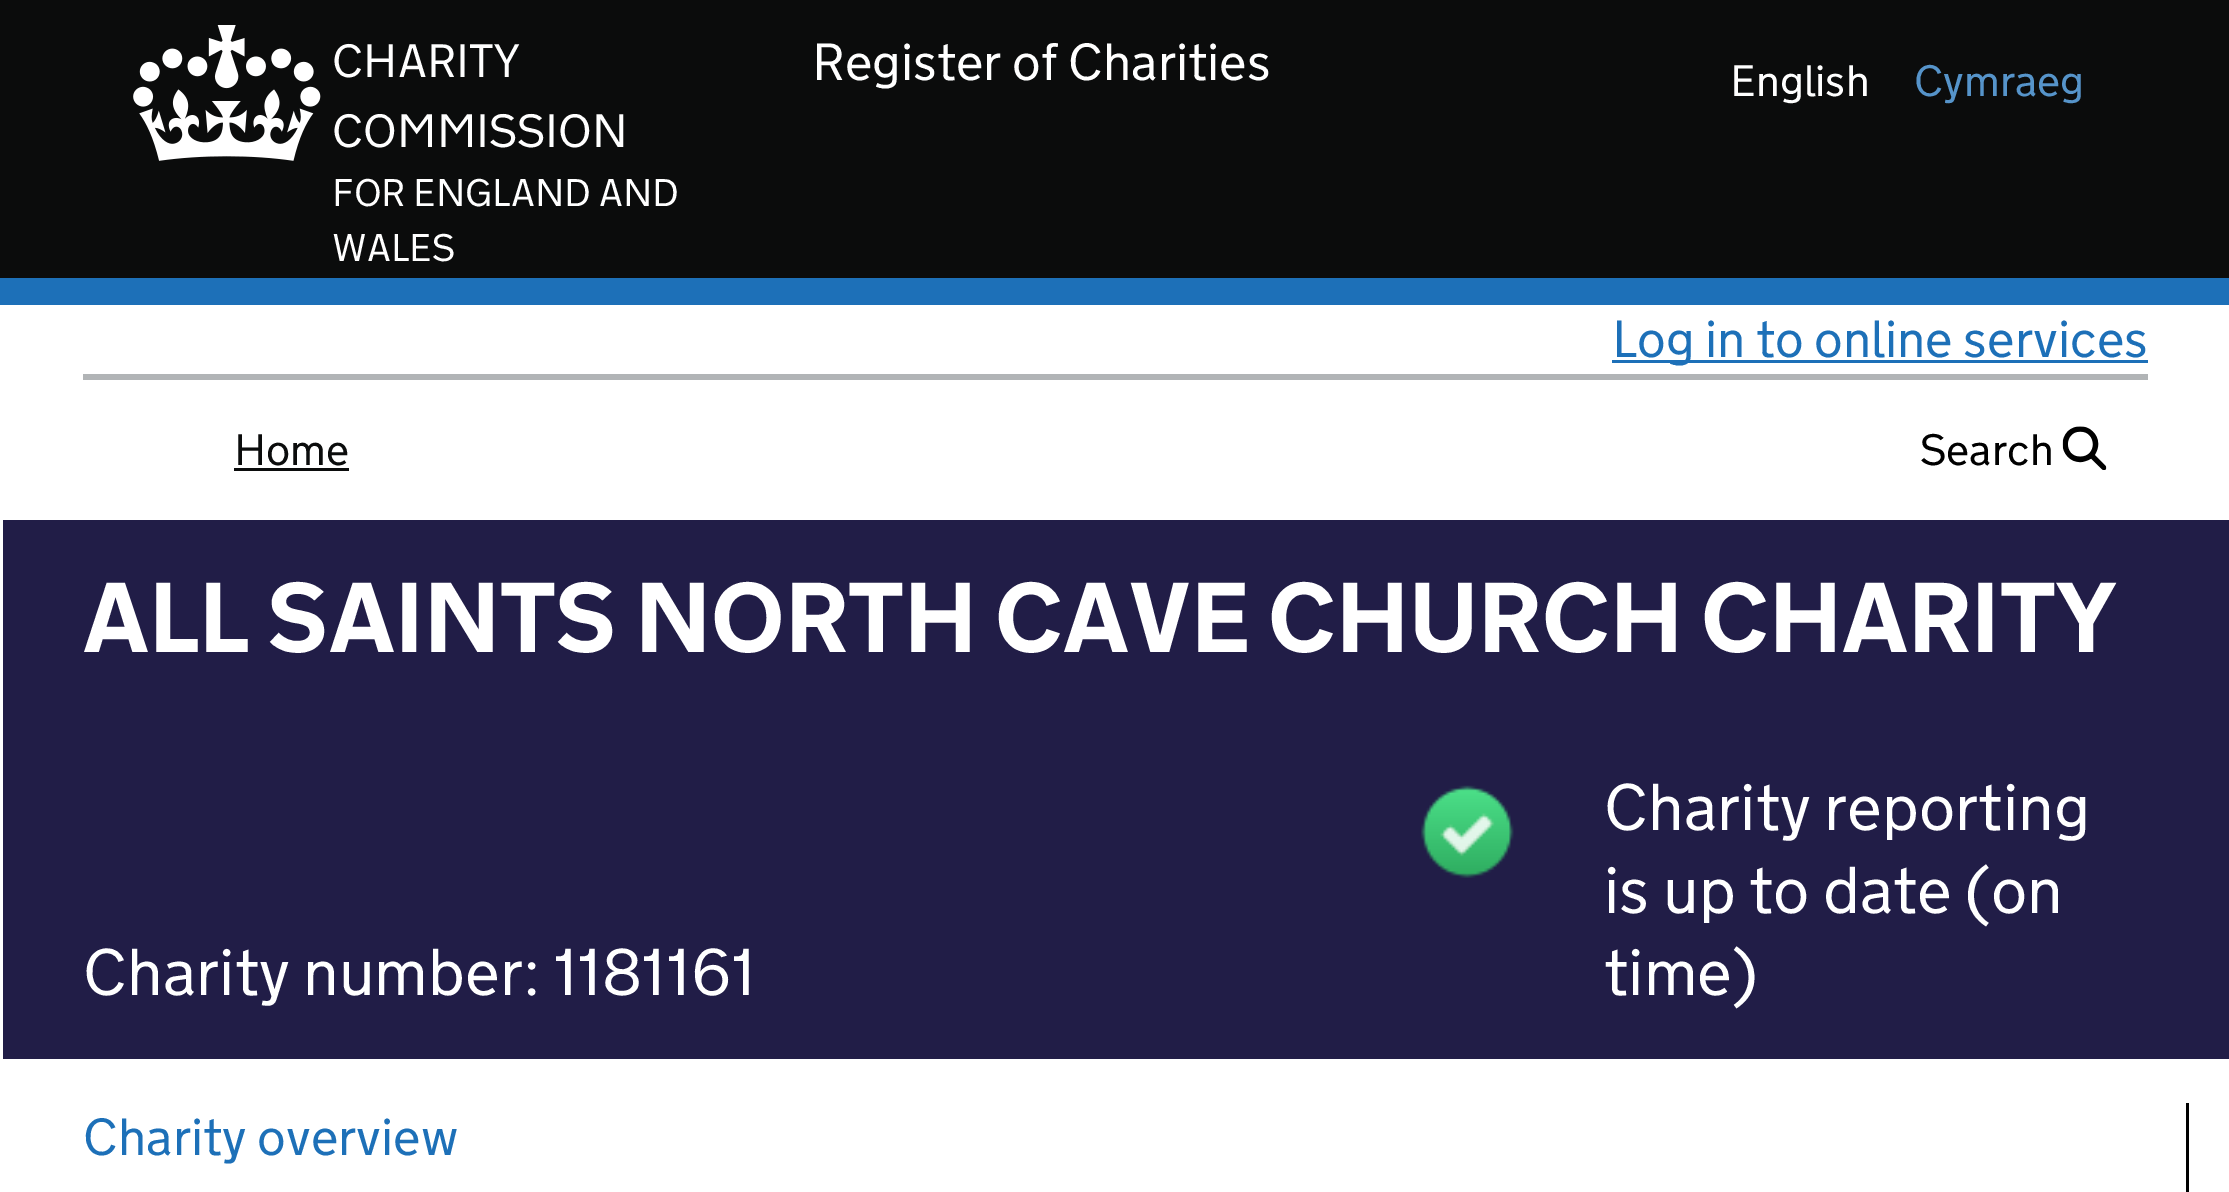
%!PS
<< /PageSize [2229 1192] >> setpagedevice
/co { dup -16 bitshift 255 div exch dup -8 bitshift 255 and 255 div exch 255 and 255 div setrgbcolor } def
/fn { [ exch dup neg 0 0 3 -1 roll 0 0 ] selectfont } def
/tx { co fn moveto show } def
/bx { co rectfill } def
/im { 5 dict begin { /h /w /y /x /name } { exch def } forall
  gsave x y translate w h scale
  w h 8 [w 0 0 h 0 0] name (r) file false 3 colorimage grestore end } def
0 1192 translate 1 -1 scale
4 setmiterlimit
0 0 2229 1192 16#FFFFFF bx
0 0 2229 278 16#0B0C0C bx
0 278 2229 27 16#1D70B8 bx
(media/1.raw) 133 25 188 136 im
83 374 2065 6 16#B1B4B6 bx
1612 360 536 3 16#1D70B8 bx
234 468 115 3 16#0B0C0C bx
(media/2.raw) 2062 426 45 44 im
3 520 2226 539 16#211D47 bx
(media/3.raw) 1421 785 93 93 im
2186 1103 3 89 16#000000 bx
(CHARITY) 332 77 /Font-Light 46.75 16#FFFFFF tx
(COMMISSION) 332 147 /Font-Light 46.75 16#FFFFFF tx
(FOR ENGLAND AND) 332 206 /Font-Light 38.5 16#FFFFFF tx
(WALES) 332 261 /Font-Light 38.5 16#FFFFFF tx
(Register of Charities) 812 80 /Font-Light 52.25 16#FFFFFF tx
(English) 1730 96 /Font-Light 44 16#FFFFFF tx
(Cymraeg) 1914 96 /Font-Light 44 16#5694CA tx
(Log in to online services) 1612 357 /Font-Light 52.25 16#1D70B8 tx
(Home) 234 465 /Font-Light 44 16#0B0C0C tx
(Search) 1920 465 /Font-Light 44 16#000000 tx
(ALL SAINTS NORTH CAVE CHURCH CHARITY) 83 652 /Font-Bold 99 16#FFFFFF tx
(Charity number: 1181161) 83 995 /Font-Light 66 16#FFFFFF tx
(Charity reporting) 1604 830 /Font-Light 66 16#FFFFFF tx
(is up to date \(on) 1604 913 /Font-Light 66 16#FFFFFF tx
(time\)) 1604 995 /Font-Light 66 16#FFFFFF tx
(Charity overview) 83 1155 /Font-Light 52.25 16#1D70B8 tx
showpage
